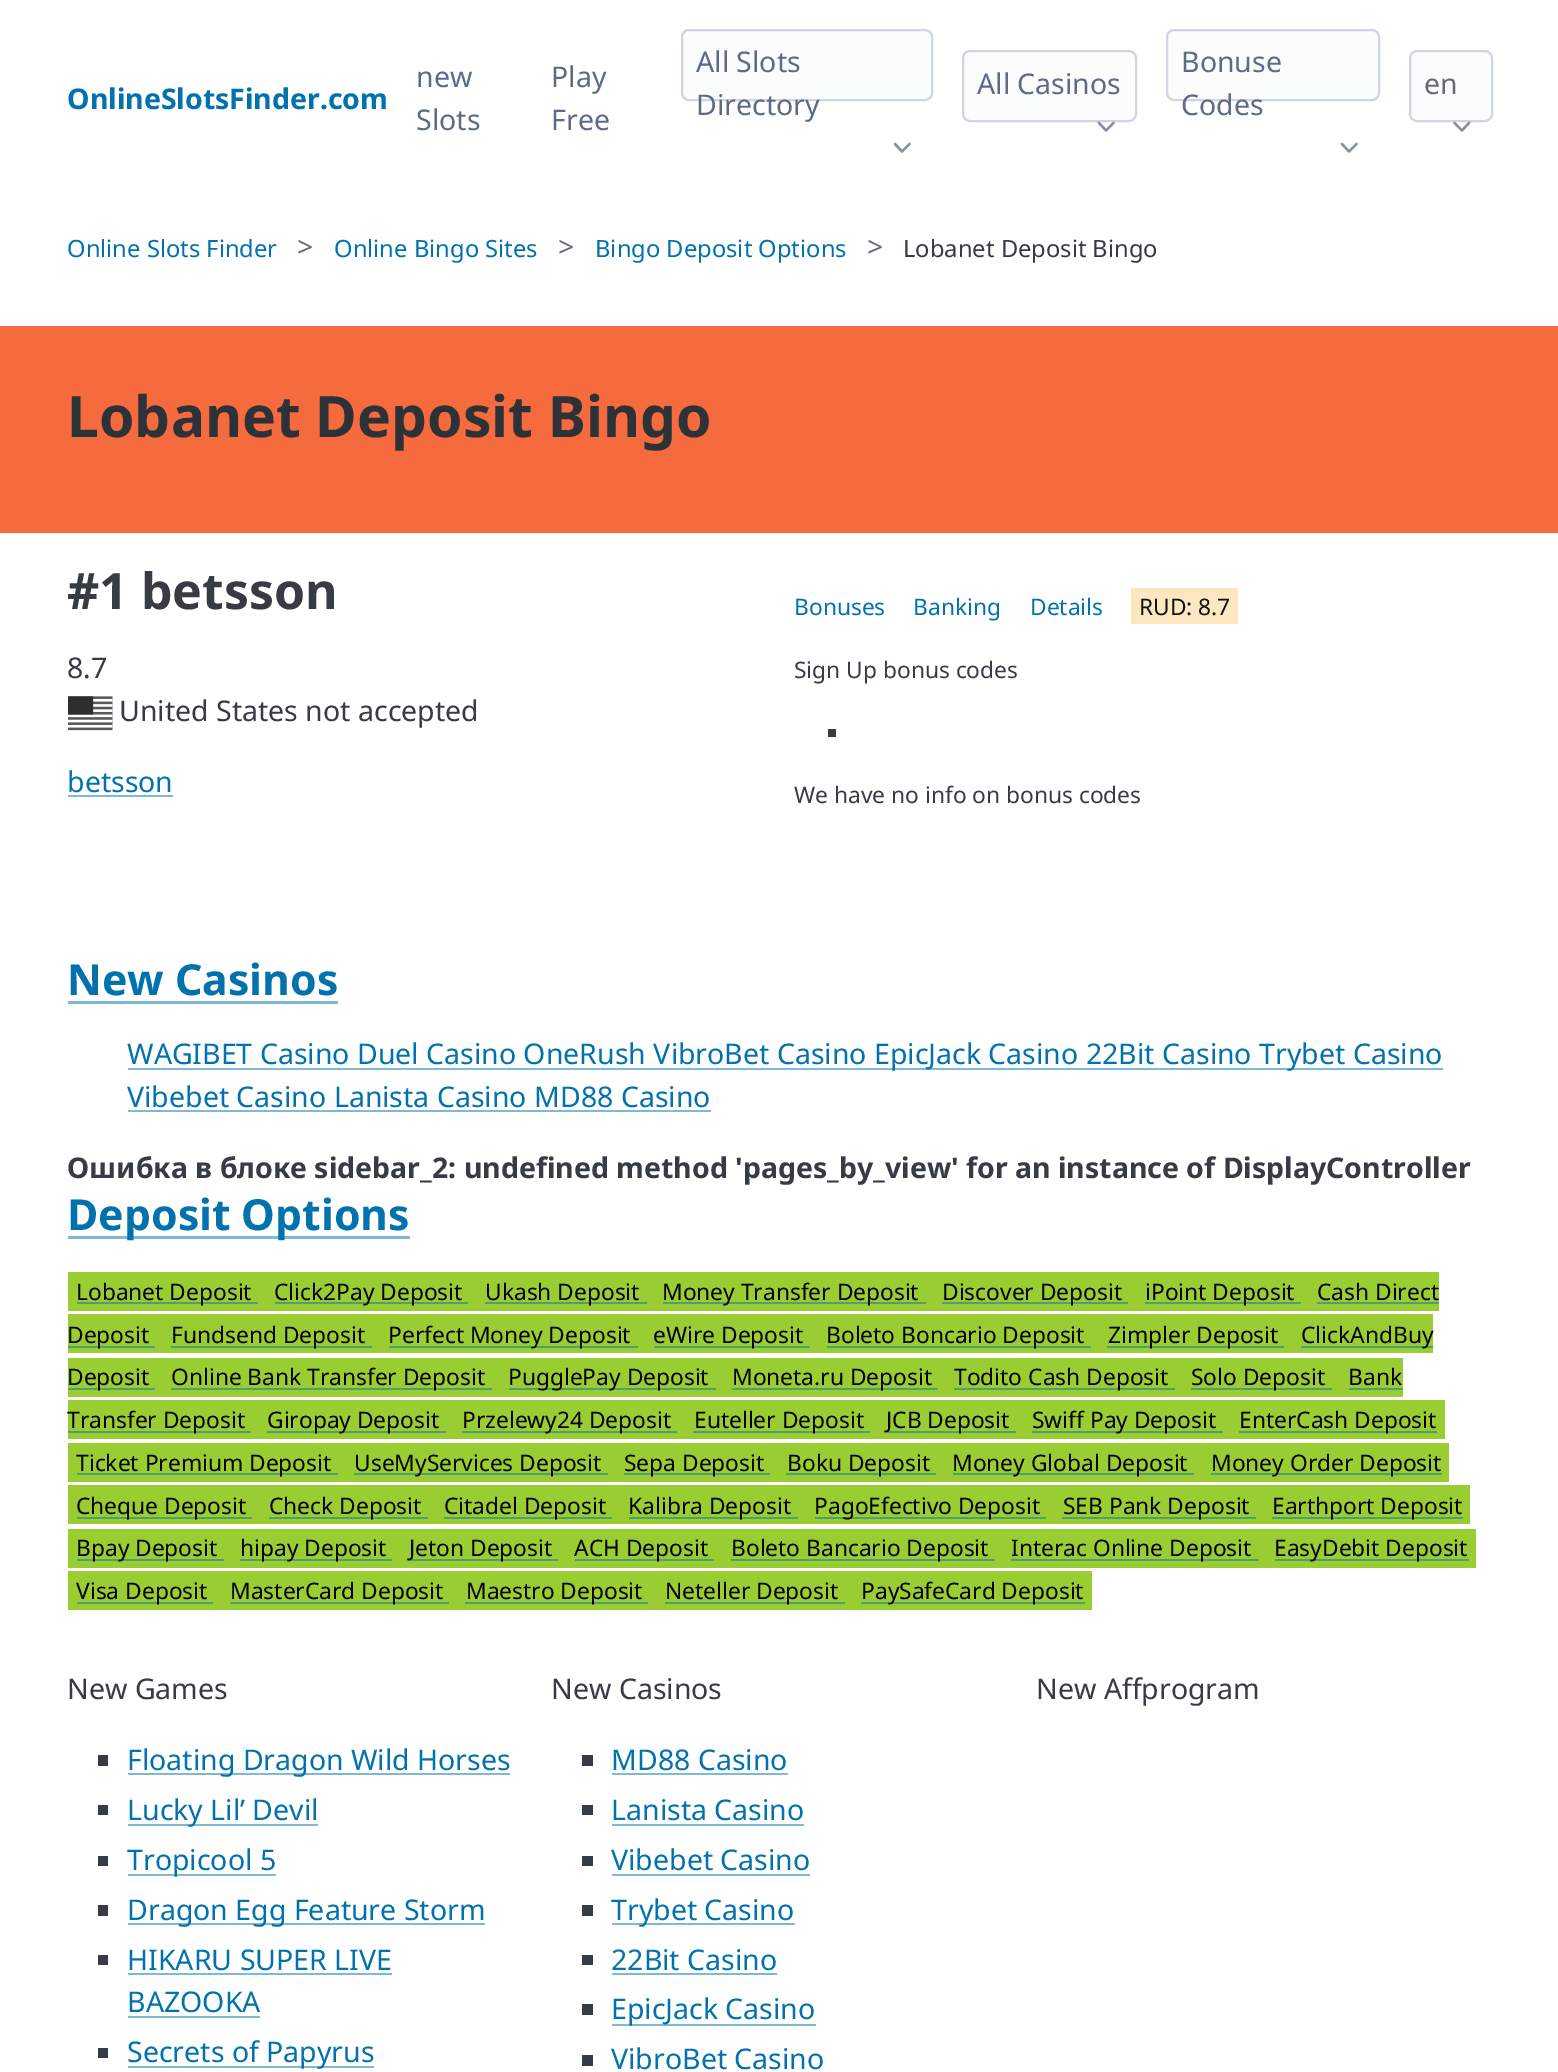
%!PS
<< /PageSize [1558 2072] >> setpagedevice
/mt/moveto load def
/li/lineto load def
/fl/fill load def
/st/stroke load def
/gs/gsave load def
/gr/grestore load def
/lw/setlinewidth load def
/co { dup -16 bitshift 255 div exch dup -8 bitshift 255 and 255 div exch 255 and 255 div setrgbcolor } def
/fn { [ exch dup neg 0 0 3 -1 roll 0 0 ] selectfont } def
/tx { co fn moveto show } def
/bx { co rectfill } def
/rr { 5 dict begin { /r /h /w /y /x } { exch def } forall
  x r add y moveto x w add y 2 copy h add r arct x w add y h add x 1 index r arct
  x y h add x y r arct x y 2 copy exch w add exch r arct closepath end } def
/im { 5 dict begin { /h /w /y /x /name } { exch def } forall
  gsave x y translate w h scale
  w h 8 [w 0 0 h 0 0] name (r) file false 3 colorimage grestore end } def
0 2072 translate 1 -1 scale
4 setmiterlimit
0 0 1558 2072 16#FFFFFF bx
16#FBFCFC co
682 30 250 70 7 rr gs fl gr
16#CFD5E2 co
2 lw
st
16#8891A4 co
2.4 lw
1 setlinecap
1 setlinejoin
895 144 mt 902 151.5 li 909.5 144 li st
16#FBFCFC co
963 51 173 70 7 rr gs fl gr
16#CFD5E2 co
2 lw
0 setlinecap
0 setlinejoin
st
16#8891A4 co
2.4 lw
1 setlinecap
1 setlinejoin
1099 123 mt 1106 130.5 li 1113.5 123 li st
16#FBFCFC co
1167 30 212 70 7 rr gs fl gr
16#CFD5E2 co
2 lw
0 setlinecap
0 setlinejoin
st
16#8891A4 co
2.4 lw
1 setlinecap
1 setlinejoin
1342 144 mt 1349 151.5 li 1356.5 144 li st
16#FBFCFC co
1410 51 82 70 7 rr gs fl gr
16#CFD5E2 co
2 lw
0 setlinecap
0 setlinejoin
st
16#8891A4 co
2.4 lw
1 setlinecap
1 setlinejoin
1454.5 123 mt 1462 130.5 li 1469 123 li st
0 326 1558 207 16#F56B3D bx
(media/1.raw) 68 696 45 35 im
68 795 105 2 16#80B9D6 bx
1131 588 107 36 16#FDE7C0 bx
828 729 8 8 16#373C44 bx
68 1001 270 3 16#80B9D6 bx
128 1068 1315 2 16#80B9D6 bx
128 1110 583 2 16#80B9D6 bx
68 1236 342 3 16#80B9D6 bx
68 1272 1371 39 16#9ACD32 bx
77 1302 181 2 16#4EA070 bx
275 1302 193 2 16#4EA070 bx
485 1302 162 2 16#4EA070 bx
663 1302 263 2 16#4EA070 bx
942 1302 186 2 16#4EA070 bx
1145 1302 156 2 16#4EA070 bx
1317 1302 122 2 16#4EA070 bx
68 1314 1365 39 16#9ACD32 bx
68 1346 87 2 16#4EA070 bx
171 1346 201 2 16#4EA070 bx
389 1346 249 2 16#4EA070 bx
654 1346 156 2 16#4EA070 bx
827 1346 264 2 16#4EA070 bx
1107 1346 177 2 16#4EA070 bx
1301 1346 132 2 16#4EA070 bx
68 1358 1335 39 16#9ACD32 bx
68 1388 87 2 16#4EA070 bx
171 1388 321 2 16#4EA070 bx
509 1388 207 2 16#4EA070 bx
732 1388 206 2 16#4EA070 bx
954 1388 221 2 16#4EA070 bx
1191 1388 141 2 16#4EA070 bx
1349 1388 54 2 16#4EA070 bx
68 1400 1377 39 16#9ACD32 bx
68 1431 183 2 16#4EA070 bx
267 1431 179 2 16#4EA070 bx
462 1431 215 2 16#4EA070 bx
693 1431 177 2 16#4EA070 bx
887 1431 129 2 16#4EA070 bx
1032 1431 191 2 16#4EA070 bx
1239 1431 198 2 16#4EA070 bx
68 1443 1381 39 16#9ACD32 bx
77 1473 261 2 16#4EA070 bx
354 1473 254 2 16#4EA070 bx
624 1473 146 2 16#4EA070 bx
786 1473 150 2 16#4EA070 bx
953 1473 241 2 16#4EA070 bx
1211 1473 231 2 16#4EA070 bx
68 1485 1402 39 16#9ACD32 bx
77 1517 175 2 16#4EA070 bx
269 1517 159 2 16#4EA070 bx
444 1517 168 2 16#4EA070 bx
629 1517 169 2 16#4EA070 bx
815 1517 231 2 16#4EA070 bx
1062 1517 194 2 16#4EA070 bx
1272 1517 191 2 16#4EA070 bx
68 1529 1408 39 16#9ACD32 bx
77 1559 147 2 16#4EA070 bx
240 1559 152 2 16#4EA070 bx
408 1559 150 2 16#4EA070 bx
575 1559 139 2 16#4EA070 bx
731 1559 264 2 16#4EA070 bx
1011 1559 248 2 16#4EA070 bx
1275 1559 194 2 16#4EA070 bx
68 1571 1024 39 16#9ACD32 bx
77 1602 136 2 16#4EA070 bx
230 1602 219 2 16#4EA070 bx
465 1602 183 2 16#4EA070 bx
665 1602 180 2 16#4EA070 bx
861 1602 224 2 16#4EA070 bx
98 1755 10 11 16#373C44 bx
128 1773 382 2 16#80B9D6 bx
98 1805 10 10 16#373C44 bx
128 1824 190 2 16#80B9D6 bx
98 1856 10 10 16#373C44 bx
128 1874 148 2 16#80B9D6 bx
98 1905 10 11 16#373C44 bx
128 1923 357 2 16#80B9D6 bx
98 1955 10 10 16#373C44 bx
128 1973 264 2 16#80B9D6 bx
128 2016 132 2 16#80B9D6 bx
98 2048 10 10 16#373C44 bx
128 2066 246 2 16#80B9D6 bx
582 1755 11 11 16#373C44 bx
612 1773 176 2 16#80B9D6 bx
582 1805 11 10 16#373C44 bx
612 1824 192 2 16#80B9D6 bx
582 1856 11 10 16#373C44 bx
612 1874 198 2 16#80B9D6 bx
582 1905 11 11 16#373C44 bx
612 1923 183 2 16#80B9D6 bx
582 1955 11 10 16#373C44 bx
612 1973 165 2 16#80B9D6 bx
582 2004 11 11 16#373C44 bx
612 2024 204 2 16#80B9D6 bx
582 2055 11 11 16#373C44 bx
(OnlineSlotsFinder.com) 67 109 /NotoSans-Bold 28.5 16#0172AD tx
(new) 416 87 /NotoSans-Regular 28.5 16#5D6B89 tx
(Slots) 416 130 /NotoSans-Regular 28.5 16#5D6B89 tx
(Play) 551 87 /NotoSans-Regular 28.5 16#5D6B89 tx
(Free) 551 130 /NotoSans-Regular 28.5 16#5D6B89 tx
(All Slots) 696 72 /NotoSans-Regular 28.5 16#5D6B89 tx
(Directory) 696 115 /NotoSans-Regular 28.5 16#5D6B89 tx
(All Casinos) 977 94 /NotoSans-Regular 28.5 16#5D6B89 tx
(Bonuse) 1181 72 /NotoSans-Regular 28.5 16#5D6B89 tx
(Codes) 1181 115 /NotoSans-Regular 28.5 16#5D6B89 tx
(en) 1424 94 /NotoSans-Regular 28.5 16#646B79 tx
(Online Slots Finder) 67 257 /NotoSans-Regular 23.75 16#0172AD tx
(>) 297 257 /NotoSans-Regular 28.5 16#646B79 tx
(Online Bingo Sites) 334 257 /NotoSans-Regular 23.75 16#0172AD tx
(>) 558 257 /NotoSans-Regular 28.5 16#646B79 tx
(Bingo Deposit Options) 595 257 /NotoSans-Regular 23.75 16#0172AD tx
(>) 867 257 /NotoSans-Regular 28.5 16#646B79 tx
(Lobanet Deposit Bingo) 903 257 /NotoSans-Regular 23.75 16#373C44 tx
(Lobanet Deposit Bingo) 67 437 /NotoSans-Bold 57 16#2D3138 tx
(#1 betsson) 67 609 /NotoSans-Bold 50 16#373C44 tx
(8.7) 67 678 /NotoSans-Regular 28.5 16#373C44 tx
(United States not accepted) 119 721 /NotoSans-Regular 28.5 16#373C44 tx
(betsson) 67 792 /NotoSans-Regular 28.5 16#0172AD tx
(Bonuses) 794 615 /NotoSans-Regular 22.75 16#0172AD tx
(Banking) 913 615 /NotoSans-Regular 22.75 16#0172AD tx
(Details) 1030 615 /NotoSans-Regular 22.75 16#0172AD tx
(RUD: 8.7) 1139 615 /NotoSans-Regular 22.75 16#0F1114 tx
(Sign Up bonus codes) 794 678 /NotoSans-Regular 22.75 16#373C44 tx
(We have no info on bonus codes) 794 803 /NotoSans-Regular 22.75 16#373C44 tx
(New Casinos) 67 995 /NotoSans-Bold 42.75 16#0172AD tx
(WAGIBET Casino Duel Casino OneRush VibroBet Casino EpicJack Casino 22Bit Casino Trybet Casino) 127 1064 /NotoSans-Regular 28.5 16#0172AD tx
(Vibebet Casino Lanista Casino MD88 Casino) 127 1107 /NotoSans-Regular 28.5 16#0172AD tx
(Ошибка в блоке sidebar_2: undefined method 'pages_by_view' for an instance of DisplayController) 67 1178 /NotoSans-Bold 28.5 16#373C44 tx
(Deposit Options) 67 1230 /NotoSans-Bold 42.75 16#0172AD tx
(Lobanet Deposit) 76 1300 /NotoSans-Regular 22.75 16#000000 tx
(Click2Pay Deposit) 274 1300 /NotoSans-Regular 22.75 16#000000 tx
(Ukash Deposit) 485 1300 /NotoSans-Regular 22.75 16#000000 tx
(Money Transfer Deposit) 662 1300 /NotoSans-Regular 22.75 16#000000 tx
(Discover Deposit) 942 1300 /NotoSans-Regular 22.75 16#000000 tx
(iPoint Deposit) 1145 1300 /NotoSans-Regular 22.75 16#000000 tx
(Cash Direct) 1317 1300 /NotoSans-Regular 22.75 16#000000 tx
(Deposit) 67 1343 /NotoSans-Regular 22.75 16#000000 tx
(Fundsend Deposit) 171 1343 /NotoSans-Regular 22.75 16#000000 tx
(Perfect Money Deposit) 388 1343 /NotoSans-Regular 22.75 16#000000 tx
(eWire Deposit) 653 1343 /NotoSans-Regular 22.75 16#000000 tx
(Boleto Boncario Deposit) 826 1343 /NotoSans-Regular 22.75 16#000000 tx
(Zimpler Deposit) 1108 1343 /NotoSans-Regular 22.75 16#000000 tx
(ClickAndBuy) 1301 1343 /NotoSans-Regular 22.75 16#000000 tx
(Deposit) 67 1385 /NotoSans-Regular 22.75 16#000000 tx
(Online Bank Transfer Deposit) 171 1385 /NotoSans-Regular 22.75 16#000000 tx
(PugglePay Deposit) 508 1385 /NotoSans-Regular 22.75 16#000000 tx
(Moneta.ru Deposit) 732 1385 /NotoSans-Regular 22.75 16#000000 tx
(Todito Cash Deposit) 954 1385 /NotoSans-Regular 22.75 16#000000 tx
(Solo Deposit) 1191 1385 /NotoSans-Regular 22.75 16#000000 tx
(Bank) 1348 1385 /NotoSans-Regular 22.75 16#000000 tx
(Transfer Deposit) 67 1428 /NotoSans-Regular 22.75 16#000000 tx
(Giropay Deposit) 267 1428 /NotoSans-Regular 22.75 16#000000 tx
(Przelewy24 Deposit) 462 1428 /NotoSans-Regular 22.75 16#000000 tx
(Euteller Deposit) 694 1428 /NotoSans-Regular 22.75 16#000000 tx
(JCB Deposit) 886 1428 /NotoSans-Regular 22.75 16#000000 tx
(Swiff Pay Deposit) 1032 1428 /NotoSans-Regular 22.75 16#000000 tx
(EnterCash Deposit) 1239 1428 /NotoSans-Regular 22.75 16#000000 tx
(Ticket Premium Deposit) 76 1471 /NotoSans-Regular 22.75 16#000000 tx
(UseMyServices Deposit) 354 1471 /NotoSans-Regular 22.75 16#000000 tx
(Sepa Deposit) 624 1471 /NotoSans-Regular 22.75 16#000000 tx
(Boku Deposit) 787 1471 /NotoSans-Regular 22.75 16#000000 tx
(Money Global Deposit) 952 1471 /NotoSans-Regular 22.75 16#000000 tx
(Money Order Deposit) 1211 1471 /NotoSans-Regular 22.75 16#000000 tx
(Cheque Deposit) 76 1514 /NotoSans-Regular 22.75 16#000000 tx
(Check Deposit) 269 1514 /NotoSans-Regular 22.75 16#000000 tx
(Citadel Deposit) 444 1514 /NotoSans-Regular 22.75 16#000000 tx
(Kalibra Deposit) 628 1514 /NotoSans-Regular 22.75 16#000000 tx
(PagoEfectivo Deposit) 814 1514 /NotoSans-Regular 22.75 16#000000 tx
(SEB Pank Deposit) 1063 1514 /NotoSans-Regular 22.75 16#000000 tx
(Earthport Deposit) 1272 1514 /NotoSans-Regular 22.75 16#000000 tx
(Bpay Deposit) 76 1556 /NotoSans-Regular 22.75 16#000000 tx
(hipay Deposit) 240 1556 /NotoSans-Regular 22.75 16#000000 tx
(Jeton Deposit) 409 1556 /NotoSans-Regular 22.75 16#000000 tx
(ACH Deposit) 574 1556 /NotoSans-Regular 22.75 16#000000 tx
(Boleto Bancario Deposit) 731 1556 /NotoSans-Regular 22.75 16#000000 tx
(Interac Online Deposit) 1011 1556 /NotoSans-Regular 22.75 16#000000 tx
(EasyDebit Deposit) 1274 1556 /NotoSans-Regular 22.75 16#000000 tx
(Visa Deposit) 76 1599 /NotoSans-Regular 22.75 16#000000 tx
(MasterCard Deposit) 230 1599 /NotoSans-Regular 22.75 16#000000 tx
(Maestro Deposit) 466 1599 /NotoSans-Regular 22.75 16#000000 tx
(Neteller Deposit) 665 1599 /NotoSans-Regular 22.75 16#000000 tx
(PaySafeCard Deposit) 861 1599 /NotoSans-Regular 22.75 16#000000 tx
(New Games) 67 1699 /NotoSans-Regular 28.5 16#373C44 tx
(Floating Dragon Wild Horses) 127 1770 /NotoSans-Regular 28.5 16#0172AD tx
(Lucky Lil’ Devil) 127 1820 /NotoSans-Regular 28.5 16#0172AD tx
(Tropicool 5) 127 1870 /NotoSans-Regular 28.5 16#0172AD tx
(Dragon Egg Feature Storm) 127 1920 /NotoSans-Regular 28.5 16#0172AD tx
(HIKARU SUPER LIVE) 127 1970 /NotoSans-Regular 28.5 16#0172AD tx
(BAZOOKA) 127 2012 /NotoSans-Regular 28.5 16#0172AD tx
(Secrets of Papyrus) 127 2062 /NotoSans-Regular 28.5 16#0172AD tx
(New Casinos) 551 1699 /NotoSans-Regular 28.5 16#373C44 tx
(MD88 Casino) 611 1770 /NotoSans-Regular 28.5 16#0172AD tx
(Lanista Casino) 611 1820 /NotoSans-Regular 28.5 16#0172AD tx
(Vibebet Casino) 611 1870 /NotoSans-Regular 28.5 16#0172AD tx
(Trybet Casino) 611 1920 /NotoSans-Regular 28.5 16#0172AD tx
(22Bit Casino) 611 1970 /NotoSans-Regular 28.5 16#0172AD tx
(EpicJack Casino) 611 2019 /NotoSans-Regular 28.5 16#0172AD tx
(VibroBet Casino) 611 2069 /NotoSans-Regular 28.5 16#0172AD tx
(New Affprogram) 1036 1699 /NotoSans-Regular 28.5 16#373C44 tx
showpage
